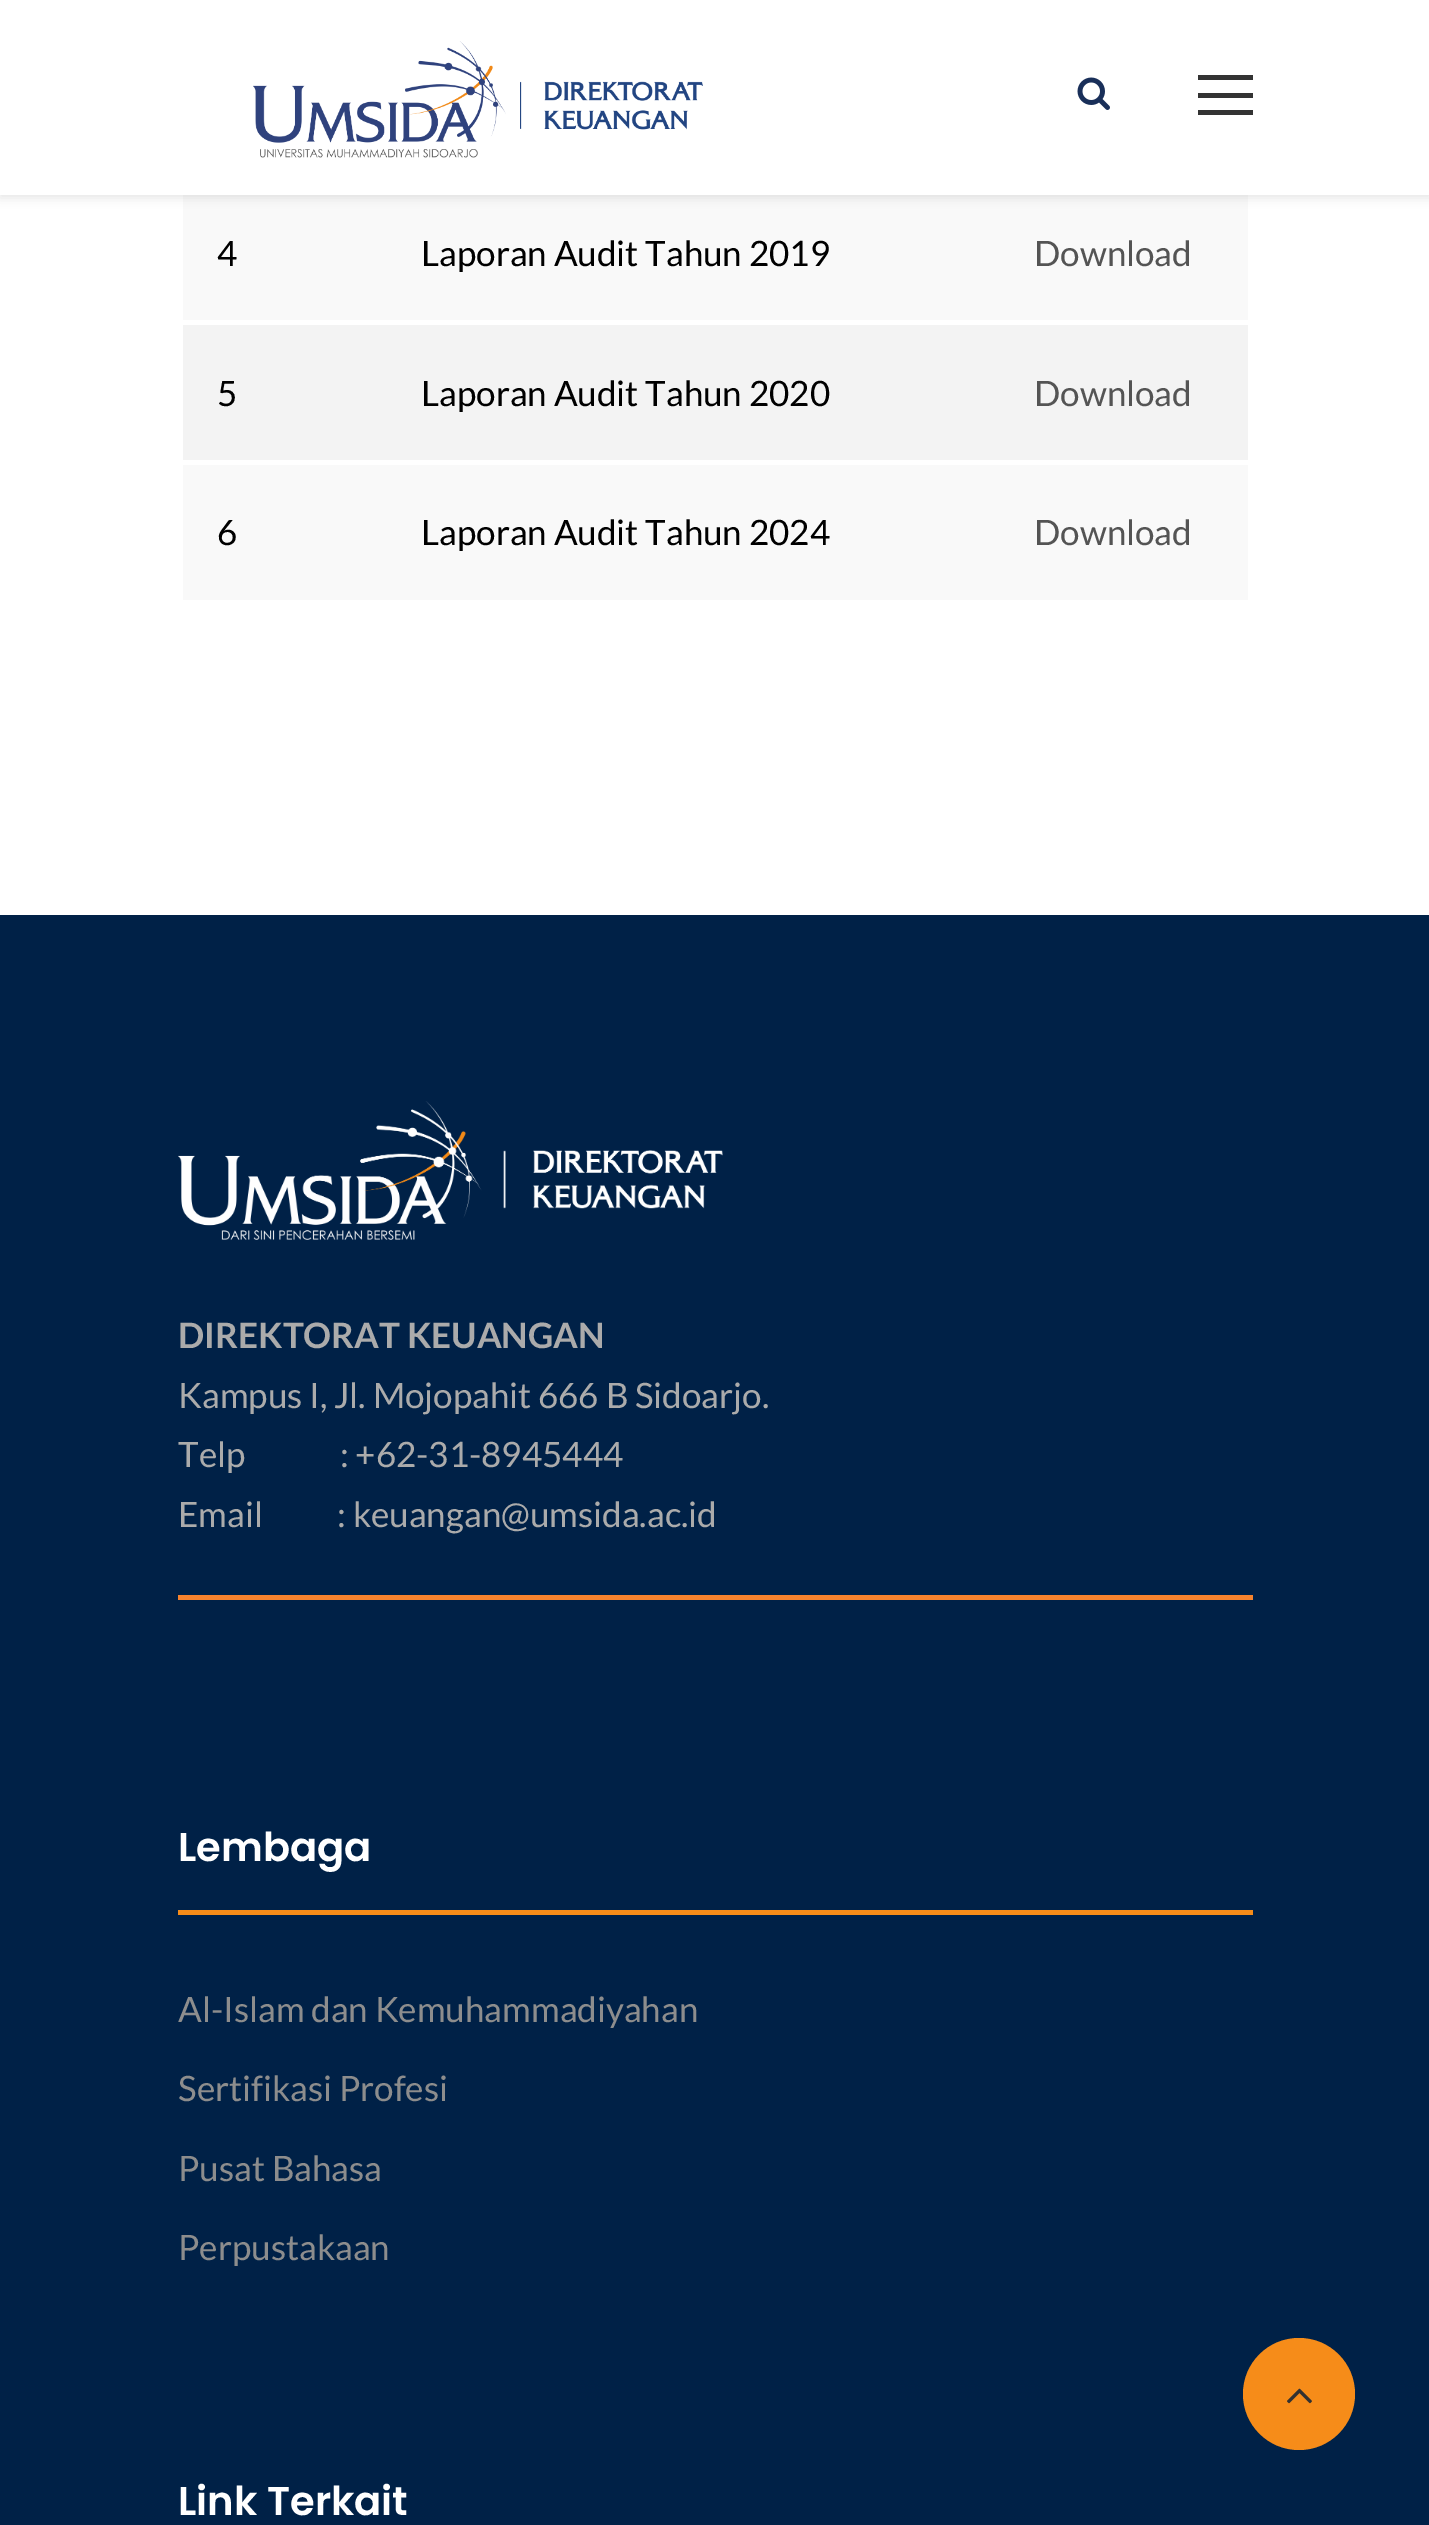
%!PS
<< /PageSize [1429 2525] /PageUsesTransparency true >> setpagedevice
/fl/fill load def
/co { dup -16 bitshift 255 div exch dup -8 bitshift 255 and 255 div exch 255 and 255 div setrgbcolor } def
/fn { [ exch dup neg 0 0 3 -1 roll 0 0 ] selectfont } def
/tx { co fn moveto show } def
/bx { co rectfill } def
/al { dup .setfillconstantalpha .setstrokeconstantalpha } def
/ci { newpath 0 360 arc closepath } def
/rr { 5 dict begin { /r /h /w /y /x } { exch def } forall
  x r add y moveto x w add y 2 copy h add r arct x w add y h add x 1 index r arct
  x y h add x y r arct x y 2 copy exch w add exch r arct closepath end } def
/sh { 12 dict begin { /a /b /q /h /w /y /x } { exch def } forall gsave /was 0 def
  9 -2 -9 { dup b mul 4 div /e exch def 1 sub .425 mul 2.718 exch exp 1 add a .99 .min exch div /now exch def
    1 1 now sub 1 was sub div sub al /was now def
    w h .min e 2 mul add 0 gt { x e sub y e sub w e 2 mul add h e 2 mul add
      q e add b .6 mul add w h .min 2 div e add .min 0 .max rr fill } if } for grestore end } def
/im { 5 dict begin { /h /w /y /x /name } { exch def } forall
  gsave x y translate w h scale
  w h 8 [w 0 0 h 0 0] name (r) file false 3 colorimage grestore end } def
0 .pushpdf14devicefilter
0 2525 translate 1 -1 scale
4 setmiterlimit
0 0 1429 2525 16#FFFFFF bx
183 195 1065 125 16#F9F9F9 bx
16#000000 co
0 3 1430 195 0 5 .1 sh
0 0 1429 195 16#FFFFFF bx
(media/1.raw) 253 41 450 117 im
(media/2.raw) 1077 77 33 33 im
1198 75 55 5 16#333333 bx
1198 93 55 5 16#333333 bx
1198 110 55 5 16#333333 bx
183 325 1065 135 16#F3F3F3 bx
183 465 1065 135 16#F9F9F9 bx
0 915 1429 1610 16#002147 bx
(media/3.raw) 178 1101 545 139 im
178 1595 1075 5 16#F6832E bx
178 1910 1075 5 16#F68C19 bx
1299 2394 56 ci fl
(media/4.raw) 1287 2388 25 16 im
(4) 217 266 /Lato-Regular 35 16#000000 tx
(Laporan Audit Tahun 2019) 421 266 /Lato-Regular 35 16#000000 tx
(Download) 1034 266 /Lato-Regular 35 16#545454 tx
(5) 217 406 /Lato-Regular 35 16#000000 tx
(Laporan Audit Tahun 2020) 421 406 /Lato-Regular 35 16#000000 tx
(Download) 1034 406 /Lato-Regular 35 16#545454 tx
(6) 217 545 /Lato-Regular 35 16#000000 tx
(Laporan Audit Tahun 2024) 421 545 /Lato-Regular 35 16#000000 tx
(Download) 1034 545 /Lato-Regular 35 16#545454 tx
(DIREKTORAT KEUANGAN) 178 1348 /Lato-Bold 35 16#ABABAB tx
(Kampus I, Jl. Mojopahit 666 B Sidoarjo.) 178 1408 /Lato-Regular 35 16#ABABAB tx
(Telp              : +62-31-8945444) 178 1467 /Lato-Regular 35 16#ABABAB tx
(Email           : keuangan@umsida.ac.id) 178 1527 /Lato-Regular 35 16#ABABAB tx
(Lembaga) 178 1861 /Poppins-SemiBold 40 16#FFFFFF tx
(Al-Islam dan Kemuhammadiyahan) 178 2022 /Lato-Regular 35 16#8D8D8D tx
(Sertifikasi Profesi) 178 2101 /Lato-Regular 35 16#8D8D8D tx
(Pusat Bahasa) 178 2181 /Lato-Regular 35 16#8D8D8D tx
(Perpustakaan) 178 2260 /Lato-Regular 35 16#8D8D8D tx
(Link Terkait) 178 2515 /Poppins-SemiBold 40 16#FFFFFF tx
.poppdf14devicefilter showpage
